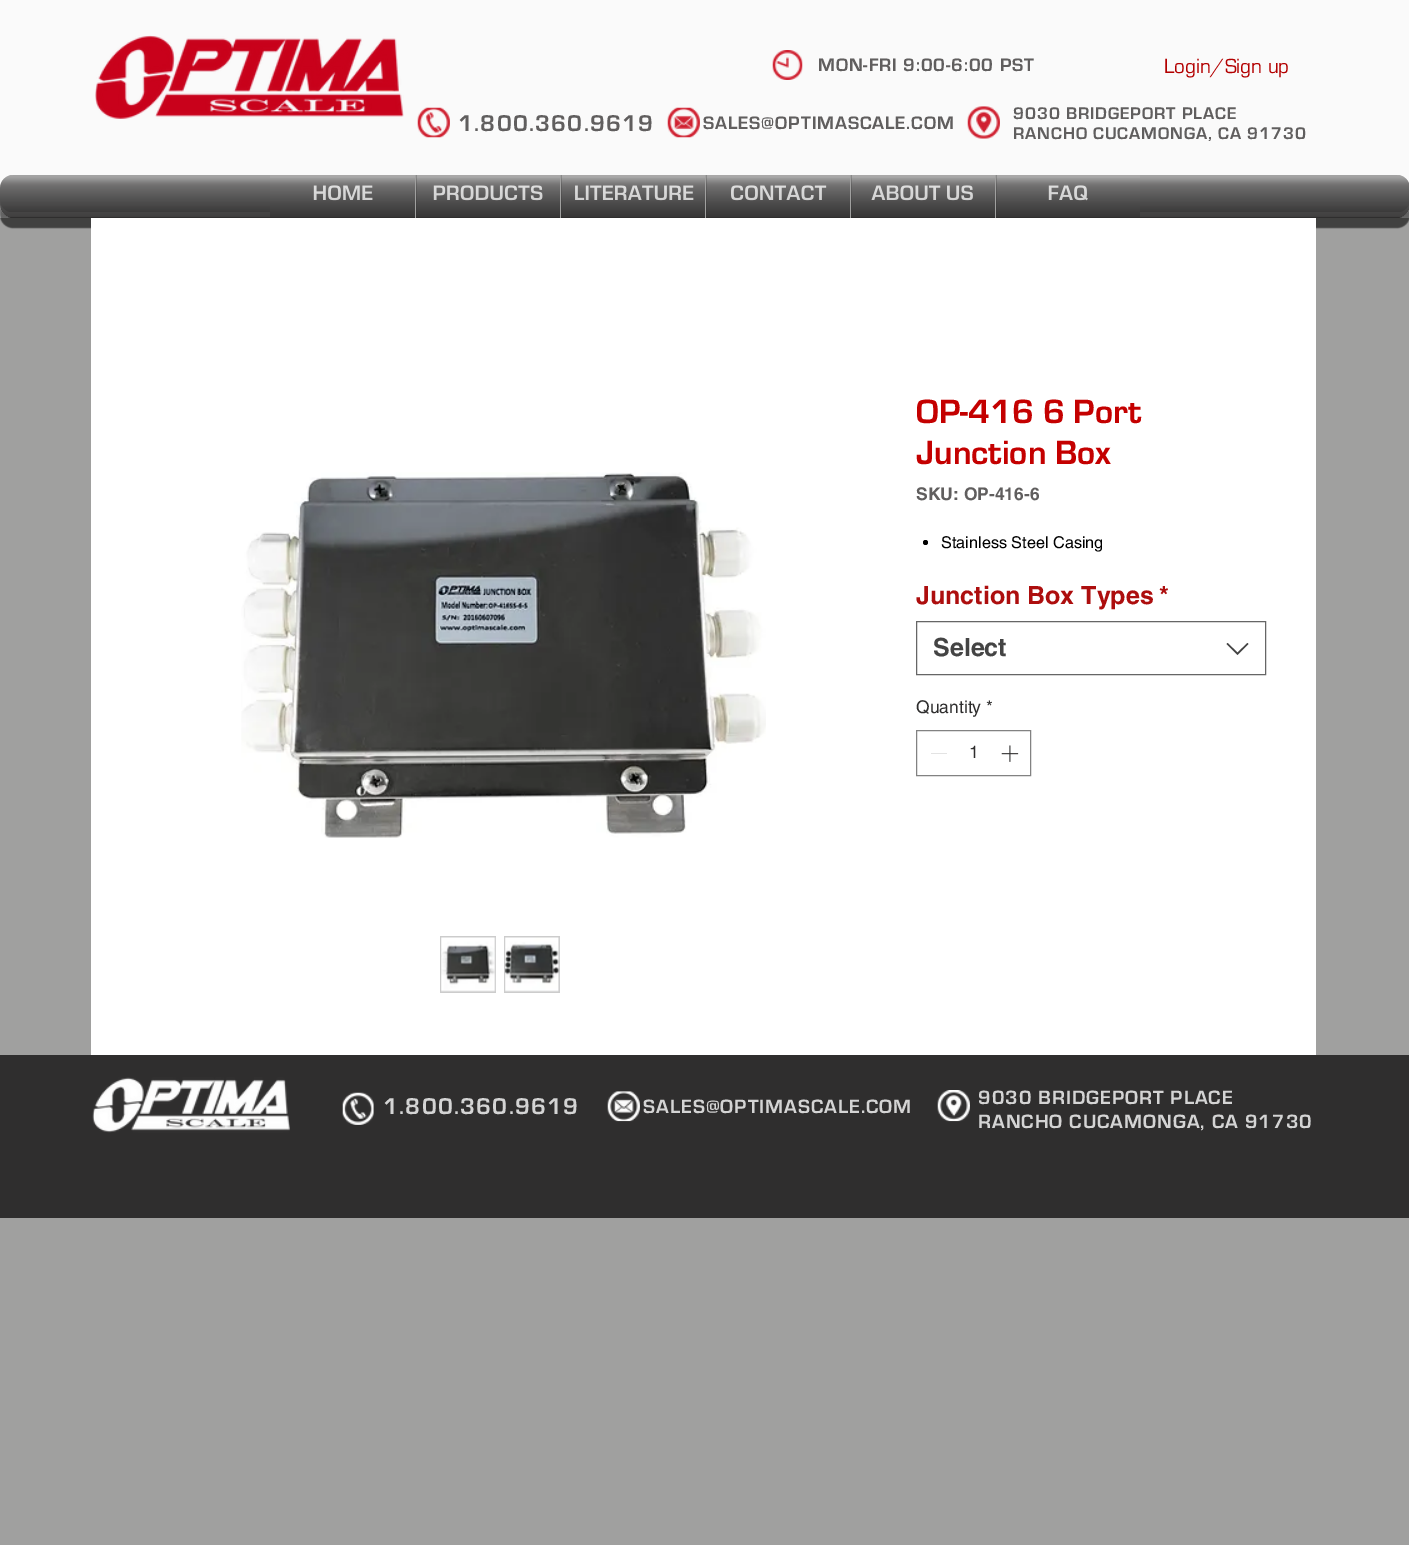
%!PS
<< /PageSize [1409 1545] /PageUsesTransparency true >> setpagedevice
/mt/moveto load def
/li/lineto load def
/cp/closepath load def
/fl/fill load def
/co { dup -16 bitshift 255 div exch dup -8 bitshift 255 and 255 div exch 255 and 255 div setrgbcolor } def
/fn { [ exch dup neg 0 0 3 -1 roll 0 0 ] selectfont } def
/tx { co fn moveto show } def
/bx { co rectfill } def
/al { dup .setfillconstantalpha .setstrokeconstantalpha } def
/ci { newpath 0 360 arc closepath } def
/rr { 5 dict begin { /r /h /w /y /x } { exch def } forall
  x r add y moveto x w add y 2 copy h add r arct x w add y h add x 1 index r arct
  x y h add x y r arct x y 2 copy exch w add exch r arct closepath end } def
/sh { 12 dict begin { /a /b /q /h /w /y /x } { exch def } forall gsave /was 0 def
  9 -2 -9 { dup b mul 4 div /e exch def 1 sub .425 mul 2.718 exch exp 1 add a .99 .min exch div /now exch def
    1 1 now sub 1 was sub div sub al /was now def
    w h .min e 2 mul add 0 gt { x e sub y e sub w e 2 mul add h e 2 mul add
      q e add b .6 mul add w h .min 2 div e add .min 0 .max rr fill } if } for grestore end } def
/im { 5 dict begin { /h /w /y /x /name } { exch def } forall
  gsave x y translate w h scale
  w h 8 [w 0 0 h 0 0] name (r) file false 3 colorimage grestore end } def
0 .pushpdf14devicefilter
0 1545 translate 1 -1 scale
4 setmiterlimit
0 0 1409 1545 16#A0A09F bx
0 0 1409 218 16#FAFAFA bx
(media/1.raw) 95 35 309 84 im
(media/2.raw) 772 50 31 30 im
(media/3.raw) 417 107 33 31 im
(media/4.raw) 667 107 33 31 im
(media/5.raw) 967 106 33 33 im
16#000000 co
0 185 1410 43 13 .5 .6 sh
16#2F2E2E co
0 175 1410 43 13 rr fl
(media/6.raw) 0 175 1409 42 im
(media/7.raw) 0 175 1409 37 im
270 175 145 42 16#2F2E2E bx
(media/10.raw) 313 185 60 16 im
(media/8.raw) 270 175 145 42 im
(media/9.raw) 270 178 145 39 im
416 175 144 42 16#2F2E2E bx
415 175 1 43 16#A0A09F bx
(media/13.raw) 433 185 110 16 im
(media/11.raw) 416 175 144 42 im
(media/12.raw) 416 178 144 39 im
561 175 144 42 16#2F2E2E bx
560 175 1 43 16#A0A09F bx
(media/16.raw) 575 185 119 16 im
(media/14.raw) 561 175 144 42 im
(media/15.raw) 561 178 144 39 im
706 175 144 42 16#2F2E2E bx
705 175 1 43 16#A0A09F bx
(media/19.raw) 731 185 96 16 im
(media/17.raw) 706 175 144 42 im
(media/18.raw) 706 178 144 39 im
851 175 144 42 16#2F2E2E bx
850 175 1 43 16#A0A09F bx
(media/22.raw) 871 185 102 16 im
(media/20.raw) 851 175 144 42 im
(media/21.raw) 851 178 144 39 im
996 175 144 42 16#2F2E2E bx
995 175 1 43 16#A0A09F bx
(media/25.raw) 1048 185 40 16 im
(media/23.raw) 996 175 144 42 im
(media/24.raw) 996 178 144 39 im
91 218 1225 837 16#FFFFFF bx
(media/26.raw) 241 472 525 366 im
440 936 56 57 16#CCCCCC bx
(media/27.raw) 441 937 55 55 im
504 936 56 57 16#CCCCCC bx
(media/28.raw) 504 937 56 55 im
16#000000 co
925.5 542.5 2.5 ci fl
16#666666 co
916.5 621.5 349 53 rectstroke
16#444444 co
1247.5 643 mt 1248.5 644 li 1237.5 655 li 1226.5 644 li 1227.5 643 li 1237.5 652.5 li cp eofill
16#828282 co
916.5 730.5 114 45 rectstroke
931 753 16 1 16#E3E3E3 bx
(media/29.raw) 1001 745 18 17 im
0 1055 1409 163 16#2F2E2E bx
(media/30.raw) 92 1077 198 56 im
(media/31.raw) 342 1092 32 33 im
(media/32.raw) 607 1091 33 31 im
(media/33.raw) 937 1090 33 32 im
/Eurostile-Bold 18.75 fn
16#605E5E co
818 71 mt .9 0 (MON-FRI 9:00-6:00 PST) ashow
(Login/Sign up) 1164 73 /Eurostile-Regular 21.25 16#B30000 tx
/Eurostile-Bold 23.75 fn
16#605E5E co
458 131 mt 1.25 0 (1.800.360.9619) ashow
/Eurostile-Bold 18.75 fn
703 129 mt .9 0 (SALES@OPTIMASCALE.COM) ashow
/Eurostile-Bold 17.5 fn
1013 119 mt .9 0 (9030 BRIDGEPORT PLACE) ashow
1013 139 mt .9 0 (RANCHO CUCAMONGA, CA 91730) ashow
(OP-416 6 Port) 916 423 /Eurostile-Bold 35 16#C40000 tx
(Junction Box) 916 464 /Eurostile-Bold 35 16#C40000 tx
(SKU: OP-416-6) 916 500 /helvetica-Bold 17.5 16#605E5E tx
(Stainless Steel Casing) 941 548 /helvetica-Regular 16.25 16#000000 tx
(Junction Box Types) 916 604 /helvetica-Bold 25 16#AD0E0E tx
(*) 1159 604 /helvetica-Bold 25 16#AD0E0E tx
(Select) 933 656 /helvetica-Bold 25 16#444444 tx
(Quantity *) 916 713 /helvetica-Regular 17.5 16#2F2E2E tx
(1) 969 758 /helvetica-Regular 17.5 16#2F2E2E tx
/Eurostile-Bold 23.75 fn
16#D4D4D4 co
383 1114 mt 1.25 0 (1.800.360.9619) ashow
/Eurostile-Bold 20 fn
643 1113 mt 1 0 (SALES@OPTIMASCALE.COM) ashow
978 1104 mt 1 0 (9030 BRIDGEPORT PLACE) ashow
978 1128 mt 1 0 (RANCHO CUCAMONGA, CA 91730) ashow
.poppdf14devicefilter showpage
